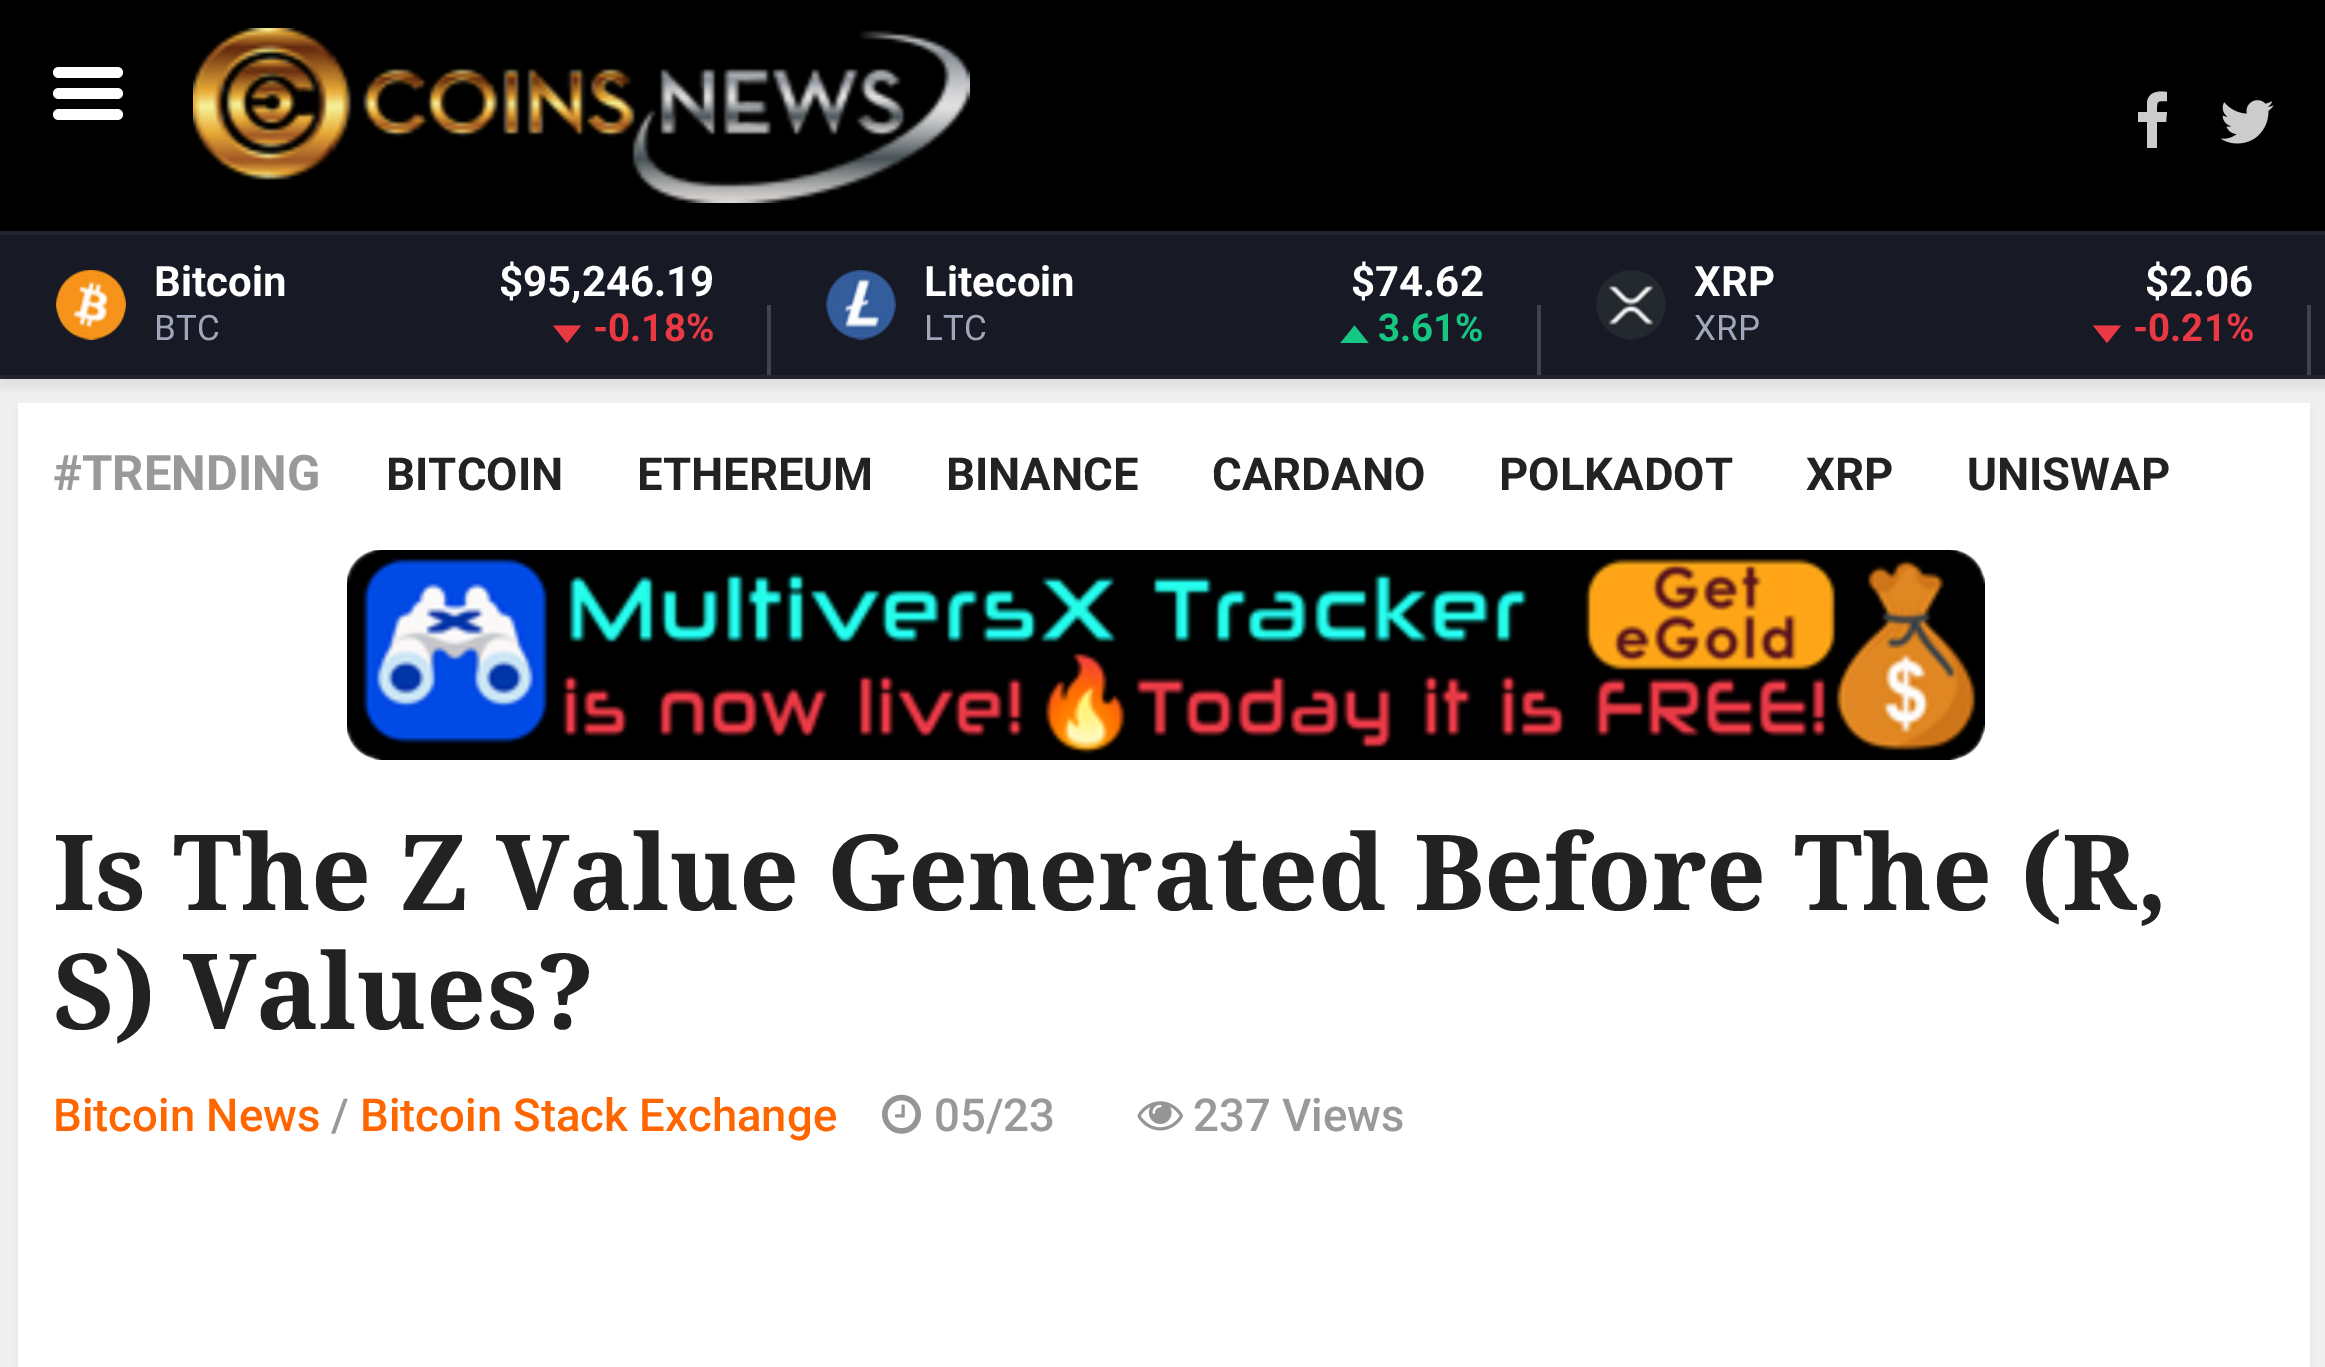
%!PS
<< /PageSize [2325 1367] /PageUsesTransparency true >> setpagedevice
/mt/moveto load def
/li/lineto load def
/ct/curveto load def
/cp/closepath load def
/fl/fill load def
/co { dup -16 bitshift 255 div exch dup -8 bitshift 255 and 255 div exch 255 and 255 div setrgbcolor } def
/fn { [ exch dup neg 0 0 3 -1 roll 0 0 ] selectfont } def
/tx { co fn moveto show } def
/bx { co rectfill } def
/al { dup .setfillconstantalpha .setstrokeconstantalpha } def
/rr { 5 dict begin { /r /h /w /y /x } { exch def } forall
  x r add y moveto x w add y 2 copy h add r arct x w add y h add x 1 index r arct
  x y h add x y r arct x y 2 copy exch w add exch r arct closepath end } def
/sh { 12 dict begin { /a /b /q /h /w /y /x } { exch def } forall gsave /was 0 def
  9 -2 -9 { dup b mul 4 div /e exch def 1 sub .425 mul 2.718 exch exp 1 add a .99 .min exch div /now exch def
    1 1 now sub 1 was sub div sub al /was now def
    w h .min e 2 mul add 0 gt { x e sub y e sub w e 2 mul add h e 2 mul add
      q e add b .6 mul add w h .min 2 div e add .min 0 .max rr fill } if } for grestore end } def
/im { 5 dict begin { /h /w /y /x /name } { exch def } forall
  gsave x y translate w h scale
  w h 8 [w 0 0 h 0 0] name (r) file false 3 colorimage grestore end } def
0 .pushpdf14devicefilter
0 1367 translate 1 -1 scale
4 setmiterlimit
0 0 2325 1367 16#EFEFEF bx
16#000000 co
0 11 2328 378 0 3.5 .05 sh
0 0 2325 231 16#000000 bx
16#FFFFFF co
53 67 70 11 5.5 rr fl
53 88 70 11 5.5 rr fl
53 109 70 11 5.5 rr fl
(media/1.raw) 193 28 777 175 im
16#CCCCCC co
2167 92 mt 2167 101 li 2156 101 2157 101 2157 112 ct 2167 112 li 2166 122 li 2157 122 li 2157 148 li 2147 148 li 2147 122 li 2138 122 li 2138 112 li 2147 112 li 2147 102 li 2149 91 2159 91 2167 92 ct cp fl
(media/2.raw) 2220 100 54 44 im
0 235 2325 140 16#171924 bx
0 231 2325 4 16#222531 bx
0 375 2325 4 16#222531 bx
(media/3.raw) 56 270 70 70 im
16#EA3943 co
553 325.5 mt 581 325.5 li 567 343 li cp fl
767 305 4 70 16#40424E bx
(media/4.raw) 826 270 70 70 im
16#16C784 co
1368.5 343 mt 1340.5 343 li 1354.5 325.5 li cp fl
1537 305 4 70 16#40424E bx
(media/5.raw) 1596 270 70 70 im
16#EA3943 co
2093 325.5 mt 2121 325.5 li 2107 343 li cp fl
2307 305 4 70 16#40424E bx
16#000000 co
18 413 2292 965 0 3.5 .05 sh
18 403 2292 964 16#FFFFFF bx
(media/6.raw) 347 550 1638 210 im
(media/7.raw) 882 1094 39 40 im
(media/8.raw) 1137 1101 46 30 im
(Bitcoin) 154 296 /Roboto-Bold 42 16#FFFFFF tx
($95,246.19) 499 296 /Roboto-Bold 42 16#FFFFFF tx
(BTC) 154 340 /Roboto-Regular 35 16#A1A7BB tx
(-0.18%) 593 341 /Roboto-Bold 38.5 16#EA3943 tx
(Litecoin) 924 296 /Roboto-Bold 42 16#FFFFFF tx
($74.62) 1351 296 /Roboto-Bold 42 16#FFFFFF tx
(LTC) 924 340 /Roboto-Regular 35 16#A1A7BB tx
(3.61%) 1378 341 /Roboto-Bold 38.5 16#16C784 tx
(XRP) 1694 296 /Roboto-Bold 42 16#FFFFFF tx
($2.06) 2145 296 /Roboto-Bold 42 16#FFFFFF tx
(XRP) 1694 340 /Roboto-Regular 35 16#A1A7BB tx
(-0.21%) 2133 341 /Roboto-Bold 38.5 16#EA3943 tx
(#TRENDING) 53 490 /Roboto-Bold 49 16#999999 tx
(BITCOIN) 386 490 /Roboto-Bold 45.5 16#222222 tx
(ETHEREUM) 637 490 /Roboto-Bold 45.5 16#222222 tx
(BINANCE) 946 490 /Roboto-Bold 45.5 16#222222 tx
(CARDANO) 1212 490 /Roboto-Bold 45.5 16#222222 tx
(POLKADOT) 1499 490 /Roboto-Bold 45.5 16#222222 tx
(XRP) 1806 490 /Roboto-Bold 45.5 16#222222 tx
(UNISWAP) 1967 490 /Roboto-Bold 45.5 16#222222 tx
(Is The Z Value Generated Before The \(R,) 53 910 /NotoSerif-Bold 105 16#222222 tx
(S\) Values?) 53 1029 /NotoSerif-Bold 105 16#222222 tx
(Bitcoin News) 53 1131 /Roboto-Medium 45.5 16#FF6600 tx
(/) 331 1131 /Roboto-Medium 45.5 16#999999 tx
(Bitcoin Stack Exchange) 360 1131 /Roboto-Medium 45.5 16#FF6600 tx
(05/23) 934 1131 /Roboto-Medium 45.5 16#999999 tx
(237 Views) 1193 1131 /Roboto-Medium 45.5 16#999999 tx
.poppdf14devicefilter showpage
